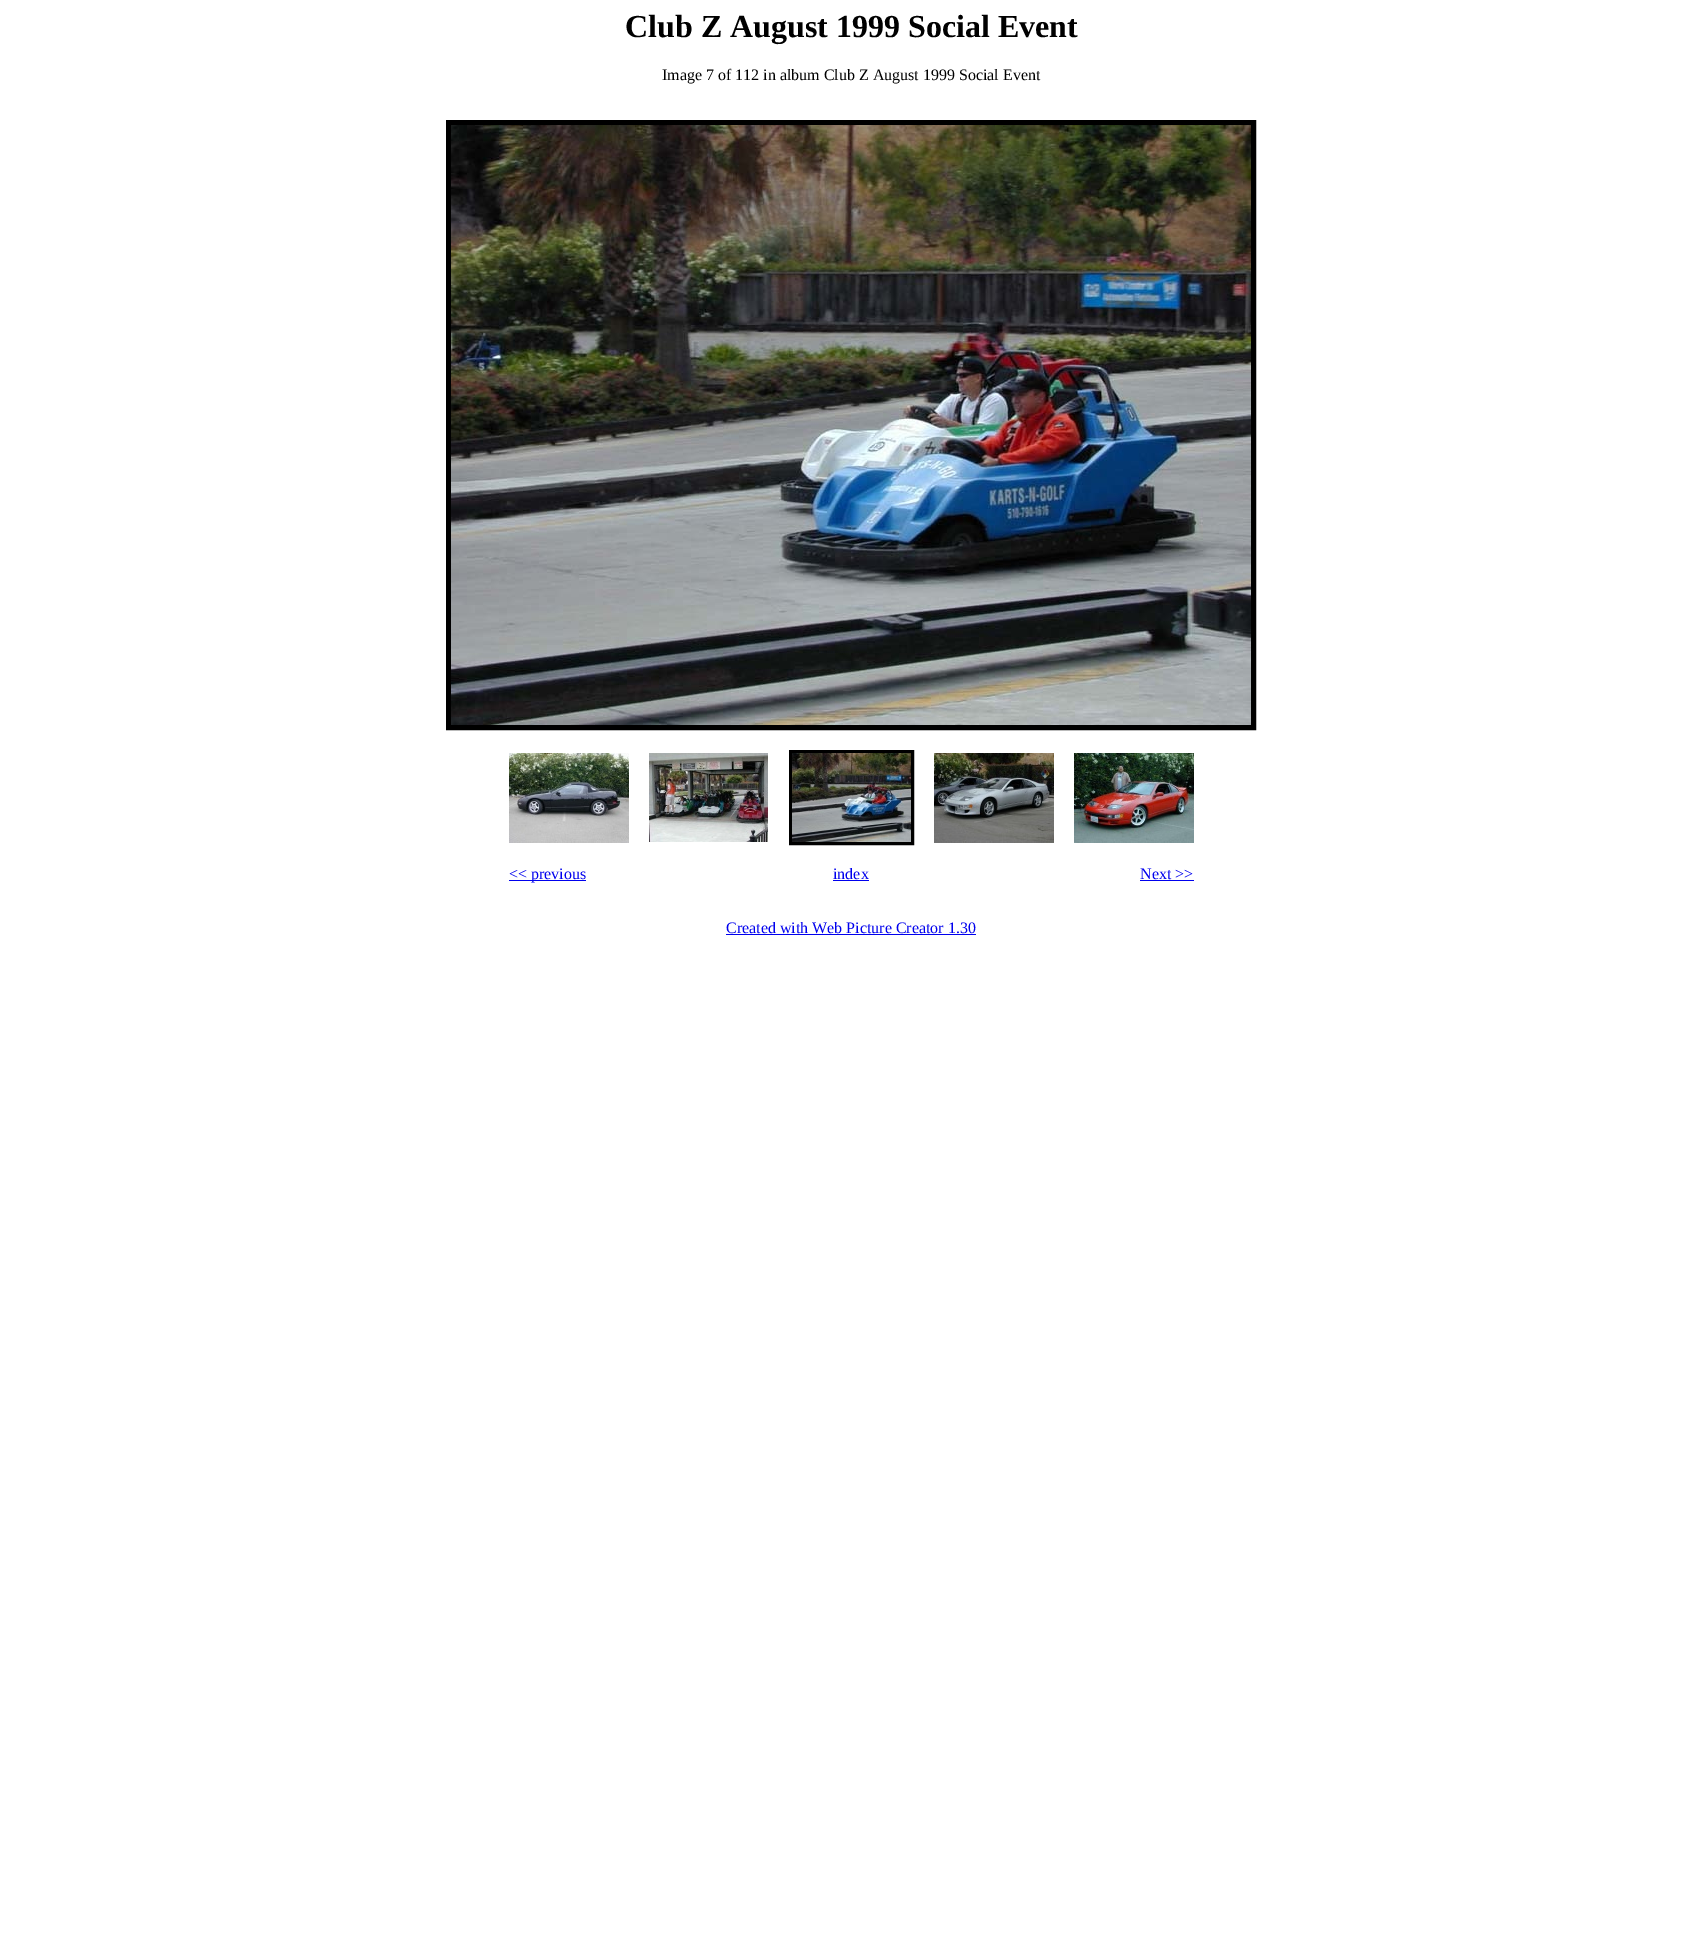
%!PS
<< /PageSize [1702 1935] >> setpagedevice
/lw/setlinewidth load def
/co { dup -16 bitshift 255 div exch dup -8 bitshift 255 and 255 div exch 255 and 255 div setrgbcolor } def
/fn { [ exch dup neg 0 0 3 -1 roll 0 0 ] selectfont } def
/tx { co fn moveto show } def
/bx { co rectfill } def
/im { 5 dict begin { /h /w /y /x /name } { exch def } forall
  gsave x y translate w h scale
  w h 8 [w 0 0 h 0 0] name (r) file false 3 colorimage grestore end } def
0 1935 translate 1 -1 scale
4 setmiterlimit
0 0 1702 1935 16#FFFFFF bx
16#000000 co
5 lw
448.5 122.5 805 605 rectstroke
(media/1.raw) 451 125 800 600 im
(media/2.raw) 509 753 120 90 im
(media/3.raw) 649 753 119 89 im
3 lw
790.5 751.5 122 92 rectstroke
(media/4.raw) 792 753 119 89 im
(media/5.raw) 934 753 120 90 im
(media/6.raw) 1074 753 120 90 im
509 880 77 1 16#0000EE bx
833 880 36 1 16#0000EE bx
1140 880 54 1 16#0000EE bx
726 934 250 1 16#0000EE bx
(Club Z August 1999 Social Event) 625 37 /LiberationSerif-Bold 32 16#000000 tx
(Image 7 of 112 in album Club Z August 1999 Social Event) 662 80 /LiberationSerif-Regular 16 16#000000 tx
(<< previous) 509 879 /LiberationSerif-Regular 16 16#0000EE tx
(index) 833 879 /LiberationSerif-Regular 16 16#0000EE tx
(Next >>) 1140 879 /LiberationSerif-Regular 16 16#0000EE tx
(Created with Web Picture Creator 1.30) 726 933 /LiberationSerif-Regular 16 16#0000EE tx
showpage
